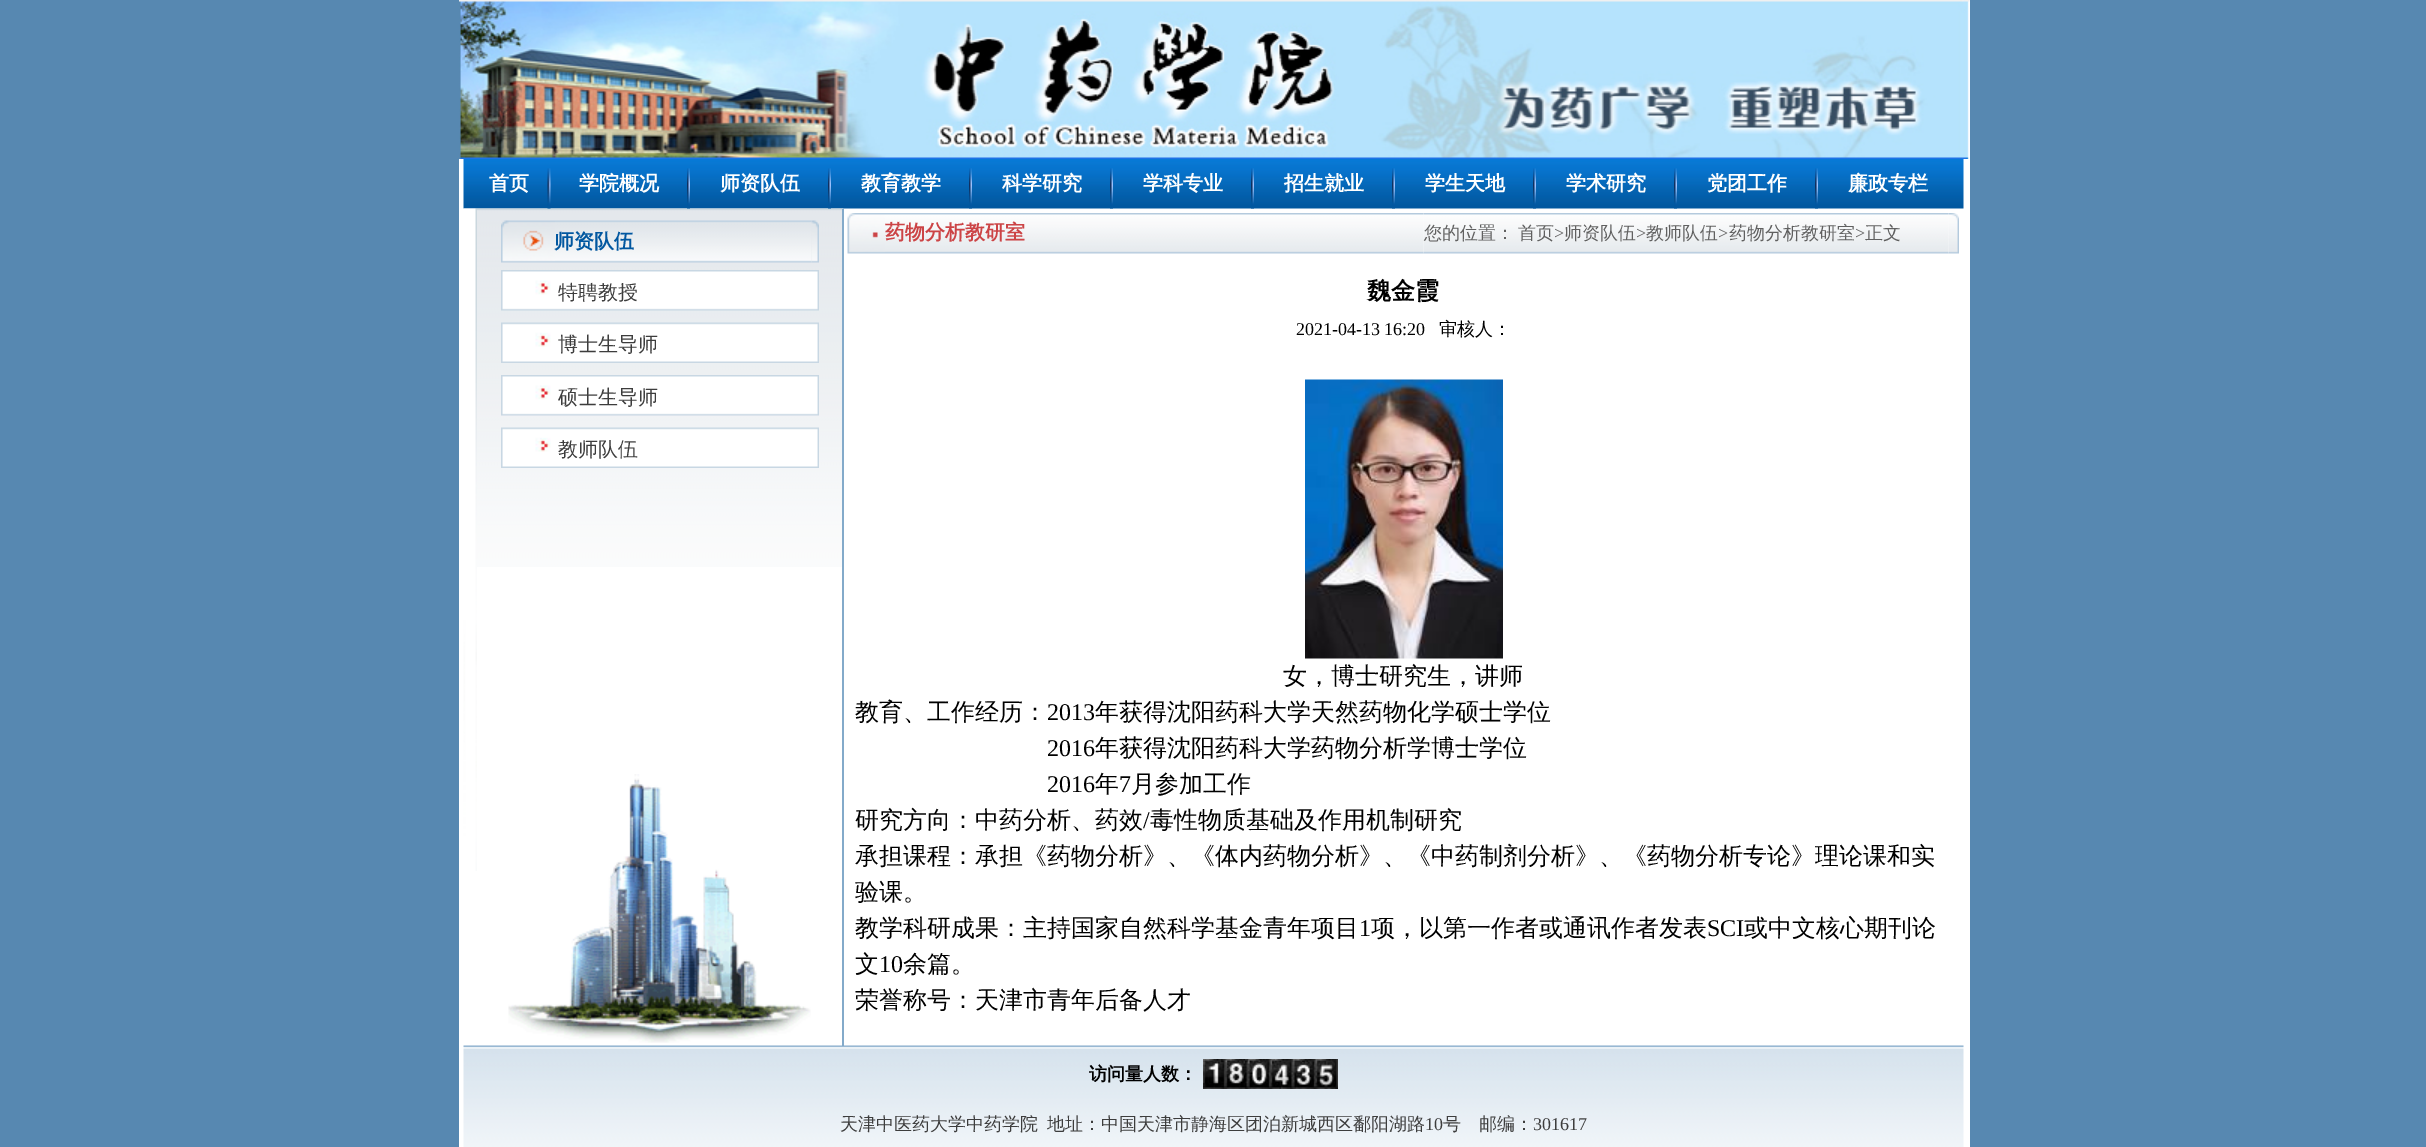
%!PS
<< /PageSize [2426 1147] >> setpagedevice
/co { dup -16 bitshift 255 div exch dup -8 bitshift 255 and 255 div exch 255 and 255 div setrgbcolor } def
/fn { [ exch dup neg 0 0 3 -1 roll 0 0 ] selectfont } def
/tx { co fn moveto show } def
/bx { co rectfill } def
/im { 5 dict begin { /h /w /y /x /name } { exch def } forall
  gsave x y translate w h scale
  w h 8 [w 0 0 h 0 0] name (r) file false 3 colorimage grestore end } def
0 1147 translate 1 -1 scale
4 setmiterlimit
0 0 2426 1147 16#5788B1 bx
459 0 1511 1147 16#FFFFFF bx
(media/1.raw) 459 0 1511 159 im
(media/2.raw) 463 159 1501 50 im
(media/8.raw) 477 208 366 359 im
(media/3.raw) 547 168 4 41 im
(media/4.raw) 687 168 3 41 im
(media/4.raw) 828 168 3 41 im
(media/5.raw) 969 168 3 41 im
(media/6.raw) 1110 168 3 41 im
(media/6.raw) 1251 168 3 41 im
(media/5.raw) 1392 168 3 41 im
(media/5.raw) 1533 168 3 41 im
(media/5.raw) 1674 168 3 41 im
(media/6.raw) 1815 168 3 41 im
(media/7.raw) 463 208 14 663 im
842 209 2 837 16#83AACA bx
(media/9.raw) 501 220 54 43 im
(media/10.raw) 555 220 257 43 im
(media/11.raw) 811 220 8 43 im
(media/12.raw) 501 270 318 41 im
(media/13.raw) 501 322 318 41 im
(media/14.raw) 501 375 318 41 im
(media/15.raw) 501 427 318 41 im
(media/16.raw) 847 213 38 41 im
(media/17.raw) 885 213 539 41 im
(media/18.raw) 1423 213 526 41 im
(media/19.raw) 1948 213 11 41 im
(media/20.raw) 1305 379 198 280 im
(media/21.raw) 508 774 303 269 im
(media/22.raw) 463 1045 1501 102 im
(media/23.raw) 1203 1059 135 30 im
(首页) 489 190 /WenQuanYiZenHei-Bold 20 16#FFFFFF tx
(学院概况) 579 190 /WenQuanYiZenHei-Bold 20 16#FFFFFF tx
(师资队伍) 720 190 /WenQuanYiZenHei-Bold 20 16#FFFFFF tx
(教育教学) 861 190 /WenQuanYiZenHei-Bold 20 16#FFFFFF tx
(科学研究) 1002 190 /WenQuanYiZenHei-Bold 20 16#FFFFFF tx
(学科专业) 1143 190 /WenQuanYiZenHei-Bold 20 16#FFFFFF tx
(招生就业) 1284 190 /WenQuanYiZenHei-Bold 20 16#FFFFFF tx
(学生天地) 1425 190 /WenQuanYiZenHei-Bold 20 16#FFFFFF tx
(学术研究) 1566 190 /WenQuanYiZenHei-Bold 20 16#FFFFFF tx
(党团工作) 1707 190 /WenQuanYiZenHei-Bold 20 16#FFFFFF tx
(廉政专栏) 1848 190 /WenQuanYiZenHei-Bold 20 16#FFFFFF tx
(师资队伍) 554 248 /WenQuanYiZenHei-Bold 20 16#0157A0 tx
(特聘教授) 558 299 /WenQuanYiZenHei-Medium 20 16#3D3D3D tx
(博士生导师) 558 351 /WenQuanYiZenHei-Medium 20 16#3D3D3D tx
(硕士生导师) 558 404 /WenQuanYiZenHei-Medium 20 16#3D3D3D tx
(教师队伍) 558 456 /WenQuanYiZenHei-Medium 20 16#3D3D3D tx
(药物分析教研室) 885 239 /WenQuanYiZenHei-Bold 20 16#CC4446 tx
(您的位置：) 1424 239 /WenQuanYiZenHei-Medium 18 16#606060 tx
(首页) 1518 239 /WenQuanYiZenHei-Medium 18 16#606060 tx
(>) 1554 239 /LiberationSerif-Regular 18 16#606060 tx
(师资队伍) 1564 239 /WenQuanYiZenHei-Medium 18 16#606060 tx
(>) 1636 239 /LiberationSerif-Regular 18 16#606060 tx
(教师队伍) 1646 239 /WenQuanYiZenHei-Medium 18 16#606060 tx
(>) 1718 239 /LiberationSerif-Regular 18 16#606060 tx
(药物分析教研室) 1729 239 /WenQuanYiZenHei-Medium 18 16#606060 tx
(>) 1855 239 /LiberationSerif-Regular 18 16#606060 tx
(正文) 1865 239 /WenQuanYiZenHei-Medium 18 16#606060 tx
(魏金霞) 1367 299 /WenQuanYiZenHei-Bold 24 16#000000 tx
(2021-04-13 16:20) 1296 335 /LiberationSerif-Regular 18 16#000000 tx
(审核人：) 1439 335 /WenQuanYiZenHei-Medium 18 16#000000 tx
(女，博士研究生，讲师) 1283 684 /WenQuanYiZenHei-Medium 24 16#000000 tx
(教育、工作经历：) 855 720 /WenQuanYiZenHei-Medium 24 16#000000 tx
(2013) 1047 720 /LiberationSerif-Regular 24 16#000000 tx
(年获得沈阳药科大学天然药物化学硕士学位) 1095 720 /WenQuanYiZenHei-Medium 24 16#000000 tx
(2016) 1047 756 /LiberationSerif-Regular 24 16#000000 tx
(年获得沈阳药科大学药物分析学博士学位) 1095 756 /WenQuanYiZenHei-Medium 24 16#000000 tx
(2016) 1047 792 /LiberationSerif-Regular 24 16#000000 tx
(年) 1095 792 /WenQuanYiZenHei-Medium 24 16#000000 tx
(7) 1119 792 /LiberationSerif-Regular 24 16#000000 tx
(月参加工作) 1131 792 /WenQuanYiZenHei-Medium 24 16#000000 tx
(研究方向：中药分析、药效) 855 828 /WenQuanYiZenHei-Medium 24 16#000000 tx
(/) 1143 828 /LiberationSerif-Regular 24 16#000000 tx
(毒性物质基础及作用机制研究) 1150 828 /WenQuanYiZenHei-Medium 24 16#000000 tx
(承担课程：承担《药物分析》、《体内药物分析》、《中药制剂分析》、《药物分析专论》理论课和实) 855 864 /WenQuanYiZenHei-Medium 24 16#000000 tx
(验课。) 855 900 /WenQuanYiZenHei-Medium 24 16#000000 tx
(教学科研成果：主持国家自然科学基金青年项目) 855 936 /WenQuanYiZenHei-Medium 24 16#000000 tx
(1) 1359 936 /LiberationSerif-Regular 24 16#000000 tx
(项，以第一作者或通讯作者发表) 1371 936 /WenQuanYiZenHei-Medium 24 16#000000 tx
(SCI) 1707 936 /LiberationSerif-Regular 24 16#000000 tx
(或中文核心期刊论) 1744 936 /WenQuanYiZenHei-Medium 24 16#000000 tx
(文) 855 972 /WenQuanYiZenHei-Medium 24 16#000000 tx
(10) 879 972 /LiberationSerif-Regular 24 16#000000 tx
(余篇。) 903 972 /WenQuanYiZenHei-Medium 24 16#000000 tx
(荣誉称号：天津市青年后备人才) 855 1008 /WenQuanYiZenHei-Medium 24 16#000000 tx
(访问量人数：) 1089 1080 /WenQuanYiZenHei-Bold 18 16#000000 tx
(天津中医药大学中药学院) 840 1130 /WenQuanYiZenHei-Medium 18 16#3D3D3D tx
(地址：中国天津市静海区团泊新城西区鄱阳湖路) 1047 1130 /WenQuanYiZenHei-Medium 18 16#3D3D3D tx
(10) 1425 1130 /LiberationSerif-Regular 18 16#3D3D3D tx
(号　邮编：) 1443 1130 /WenQuanYiZenHei-Medium 18 16#3D3D3D tx
(301617) 1533 1130 /LiberationSerif-Regular 18 16#3D3D3D tx
showpage
